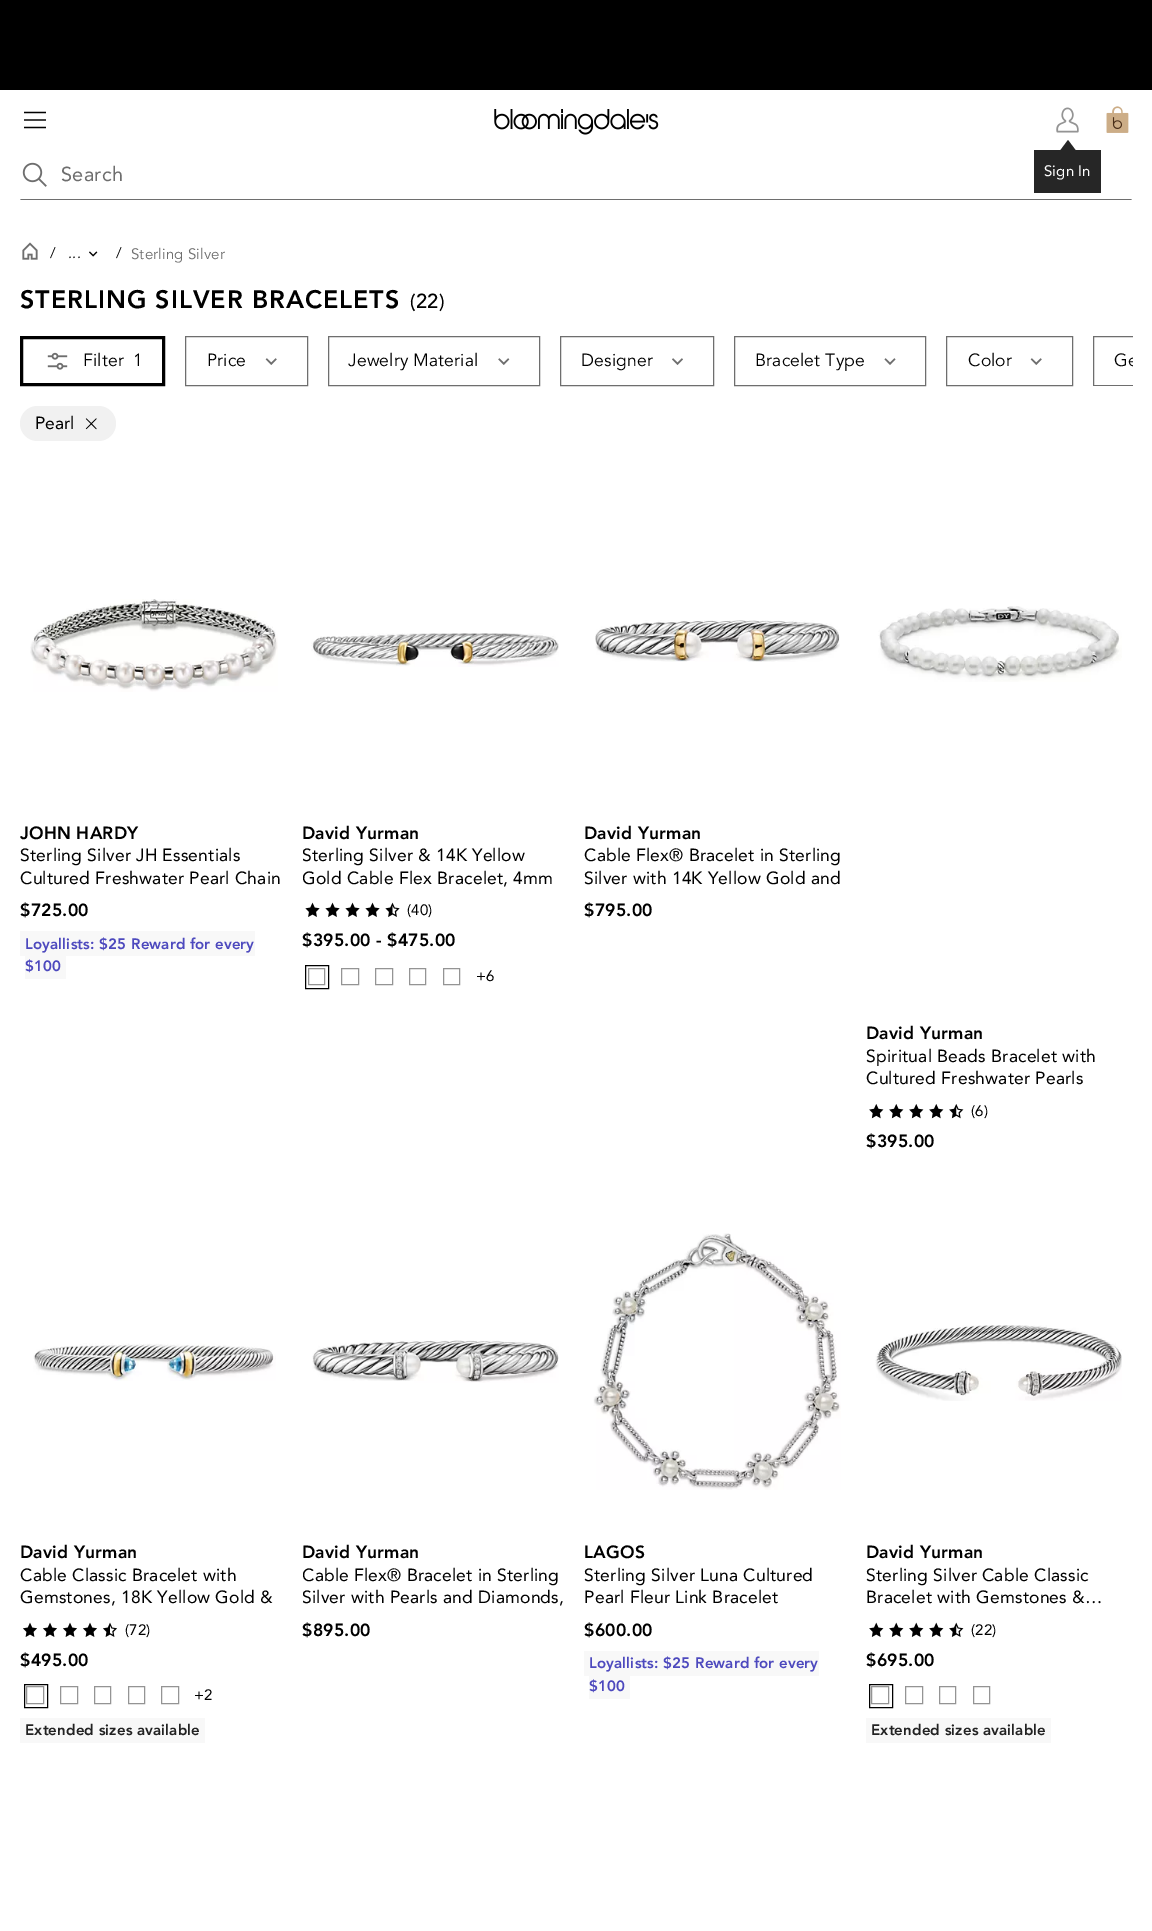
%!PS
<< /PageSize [1152 1931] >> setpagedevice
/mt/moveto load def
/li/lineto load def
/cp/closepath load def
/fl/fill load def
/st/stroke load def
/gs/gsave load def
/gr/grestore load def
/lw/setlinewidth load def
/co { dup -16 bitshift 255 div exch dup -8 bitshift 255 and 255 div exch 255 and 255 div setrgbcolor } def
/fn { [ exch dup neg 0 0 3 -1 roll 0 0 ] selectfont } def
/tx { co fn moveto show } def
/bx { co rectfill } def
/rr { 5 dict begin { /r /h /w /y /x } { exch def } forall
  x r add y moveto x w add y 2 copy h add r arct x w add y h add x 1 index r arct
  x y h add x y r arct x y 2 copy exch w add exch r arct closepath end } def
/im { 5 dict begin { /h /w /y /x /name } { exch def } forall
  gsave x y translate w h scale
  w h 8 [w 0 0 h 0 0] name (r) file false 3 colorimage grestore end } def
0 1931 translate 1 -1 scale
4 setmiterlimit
0 0 1152 1931 16#FFFFFF bx
0 0 1152 90 16#000000 bx
(media/1.raw) 22 162 25 25 im
16#6E6E6E co
1132 200 mt 20 200 li 21 199 li 1131 199 li cp fl
16#000000 co
1.2 lw
24 112.5 mt 46 112.5 li 24 120 mt 46 120 li 24 127.5 mt 46 127.5 li st
(media/2.raw) 494 109 165 26 im
(media/3.raw) 1106 106 23 27 im
(media/4.raw) 1056 107 23 26 im
1034 150 67 43 16#262626 bx
1075.5 150 mt 1060.5 150 li 1068 140 li cp fl
(media/5.raw) 22 242 16 18 im
(media/6.raw) 89 251 9 6 im
16#000000 co
3 lw
21.5 337.5 142 47 rectstroke
(media/7.raw) 47 352 21 18 im
16#6E6E6E co
1 lw
185.5 336.5 122 49 rectstroke
(media/8.raw) 265 358 12 7 im
328.5 336.5 211 49 rectstroke
(media/9.raw) 498 358 12 7 im
560.5 336.5 153 49 rectstroke
(media/10.raw) 672 358 11 7 im
734.5 336.5 191 49 rectstroke
(media/11.raw) 884 358 12 7 im
946.5 336.5 126 49 rectstroke
(media/8.raw) 1030 358 12 7 im
gs
20 336 1113 50 rectclip
1093.5 336.5 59 49 rectstroke
gr
16#F1F1F1 co
20 406 96 35 17.5 rr fl
(media/12.raw) 85 418 12 12 im
(media/13.raw) 30 599 248 93 im
20 931 235 25 16#F8F8F8 bx
25 956 41 23 16#F8F8F8 bx
(media/14.raw) 311 633 248 34 im
(media/15.raw) 305 902 15 15 im
(media/15.raw) 325 902 15 15 im
(media/15.raw) 345 902 15 15 im
(media/15.raw) 365 902 15 15 im
(media/16.raw) 385 902 15 15 im
16#949494 co
308.5 968.5 16 16 rectstroke
16#000000 co
305.5 965.5 23 23 rectstroke
16#949494 co
341.5 968.5 17 16 rectstroke
375.5 968.5 17 16 rectstroke
409.5 968.5 16 16 rectstroke
443.5 968.5 16 16 rectstroke
(media/17.raw) 595 620 245 42 im
(media/18.raw) 878 606 244 76 im
(media/19.raw) 869 1104 15 15 im
(media/19.raw) 889 1104 15 15 im
(media/19.raw) 909 1104 15 15 im
(media/19.raw) 929 1104 15 15 im
(media/20.raw) 949 1104 15 15 im
(media/21.raw) 33 1343 243 38 im
(media/22.raw) 23 1622 14 15 im
(media/22.raw) 43 1622 14 15 im
(media/22.raw) 63 1622 14 15 im
(media/22.raw) 83 1622 14 15 im
(media/23.raw) 103 1622 14 15 im
26.5 1686.5 17 17 rectstroke
16#000000 co
24.5 1684.5 23 23 rectstroke
16#949494 co
60.5 1686.5 17 17 rectstroke
94.5 1686.5 16 17 rectstroke
128.5 1686.5 16 17 rectstroke
161.5 1686.5 17 17 rectstroke
20 1718 185 25 16#F8F8F8 bx
(media/24.raw) 312 1340 247 43 im
(media/25.raw) 593 1233 248 257 im
584 1651 235 25 16#F8F8F8 bx
589 1676 41 23 16#F8F8F8 bx
(media/26.raw) 875 1325 247 76 im
(media/27.raw) 869 1622 15 15 im
(media/27.raw) 889 1622 15 15 im
(media/27.raw) 909 1622 15 15 im
(media/27.raw) 929 1622 15 15 im
(media/28.raw) 949 1622 15 15 im
16#949494 co
871.5 1686.5 17 17 rectstroke
16#000000 co
869.5 1684.5 23 23 rectstroke
16#949494 co
905.5 1686.5 17 17 rectstroke
939.5 1686.5 16 17 rectstroke
973.5 1686.5 16 17 rectstroke
866 1718 185 25 16#F8F8F8 bx
/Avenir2-Regular 20 fn
16#6E6E6E co
61 181 mt .25 0 (Search) ashow
/Avenir2-Regular 15 fn
16#FFFFFF co
1044 176 mt .15 0 (Sign In) ashow
/Avenir-Regular 15 fn
16#000000 co
50 258 mt .15 0 (/) ashow
68 258 mt .15 0 (...) ashow
116 258 mt .15 0 (/) ashow
16#6E6E6E co
131 259 mt .15 0 (Sterling Silver) ashow
/Avenir-Black 25 fn
16#000000 co
20 308 mt 1 0 (STERLING SILVER BRACELETS) ashow
/Avenir-Medium 20 fn
410 308 mt .25 0 (\(22\)) ashow
/Avenir-Regular 17.5 fn
83 366 mt .2 0 (Filter) ashow
133 366 mt .2 0 (1) ashow
207 366 mt .2 0 (Price) ashow
348 366 mt .2 0 (Jewelry Material) ashow
581 366 mt .2 0 (Designer) ashow
755 366 mt .2 0 (Bracelet Type) ashow
968 366 mt .2 0 (Color) ashow
gs
20 336 1113 50 rectclip
1114 366 mt .2 0 (Ge) ashow
gr
(Pearl) 35 429 /Avenir2-Regular 17.5 16#000000 tx
/Avenir-Black 17.5 fn
20 839 mt .2 0 (JOHN HARDY) ashow
/Avenir2-Regular 17.5 fn
20 861 mt .2 0 (Sterling Silver JH Essentials) ashow
20 884 mt .2 0 (Cultured Freshwater Pearl Chain) ashow
/Avenir-Black 17.5 fn
20 916 mt .2 0 ($725.00) ashow
/Avenir-Black 15 fn
16#4D49BE co
25 949 mt .15 0 (Loyallists: $25 Reward for every) ashow
25 971 mt .15 0 ($100) ashow
/Avenir-Black 17.5 fn
16#000000 co
302 839 mt .2 0 (David Yurman) ashow
gs
303 845 266 45 rectclip
/Avenir2-Regular 17.5 fn
302 861 mt .2 0 (Sterling Silver & 14K Yellow) ashow
302 884 mt .2 0 (Gold Cable Flex Bracelet, 4mm) ashow
gr
/Avenir2-Regular 15 fn
407 915 mt .15 0 (\(40\)) ashow
/Avenir-Black 17.5 fn
302 946 mt .2 0 ($395.00 - $475.00) ashow
/Avenir2-Regular 15 fn
476 981 mt .15 0 (+6) ashow
/Avenir-Black 17.5 fn
584 839 mt .2 0 (David Yurman) ashow
/Avenir2-Regular 17.5 fn
584 861 mt .2 0 (Cable Flex® Bracelet in Sterling) ashow
584 884 mt .2 0 (Silver with 14K Yellow Gold and) ashow
/Avenir-Black 17.5 fn
584 916 mt .2 0 ($795.00) ashow
866 1039 mt .2 0 (David Yurman) ashow
/Avenir2-Regular 17.5 fn
866 1062 mt .2 0 (Spiritual Beads Bracelet with) ashow
866 1084 mt .2 0 (Cultured Freshwater Pearls) ashow
/Avenir2-Regular 15 fn
971 1116 mt .15 0 (\(6\)) ashow
/Avenir-Black 17.5 fn
866 1147 mt .2 0 ($395.00) ashow
20 1558 mt .2 0 (David Yurman) ashow
/Avenir2-Regular 17.5 fn
20 1581 mt .2 0 (Cable Classic Bracelet with) ashow
20 1603 mt .2 0 (Gemstones, 18K Yellow Gold &) ashow
/Avenir2-Regular 15 fn
125 1635 mt .15 0 (\(72\)) ashow
/Avenir-Black 17.5 fn
20 1666 mt .2 0 ($495.00) ashow
/Avenir2-Regular 15 fn
194 1700 mt .15 0 (+2) ashow
/Avenir-Black 15 fn
16#222222 co
25 1735 mt .15 0 (Extended sizes available) ashow
/Avenir-Black 17.5 fn
16#000000 co
302 1558 mt .2 0 (David Yurman) ashow
gs
303 1565 266 45 rectclip
/Avenir2-Regular 17.5 fn
302 1581 mt .2 0 (Cable Flex® Bracelet in Sterling) ashow
302 1603 mt .2 0 (Silver with Pearls and Diamonds,) ashow
gr
302 1636 mt .2 0 ($895.00) ashow
584 1558 mt .2 0 (LAGOS) ashow
/Avenir2-Regular 17.5 fn
584 1581 mt .2 0 (Sterling Silver Luna Cultured) ashow
584 1603 mt .2 0 (Pearl Fleur Link Bracelet) ashow
/Avenir-Black 17.5 fn
584 1636 mt .2 0 ($600.00) ashow
/Avenir-Black 15 fn
16#4D49BE co
589 1668 mt .15 0 (Loyallists: $25 Reward for every) ashow
589 1691 mt .15 0 ($100) ashow
/Avenir-Black 17.5 fn
16#000000 co
866 1558 mt .2 0 (David Yurman) ashow
/Avenir2-Regular 17.5 fn
866 1581 mt .2 0 (Sterling Silver Cable Classic) ashow
866 1603 mt .2 0 (Bracelet with Gemstones &…) ashow
/Avenir2-Regular 15 fn
971 1635 mt .15 0 (\(22\)) ashow
/Avenir-Black 17.5 fn
866 1666 mt .2 0 ($695.00) ashow
/Avenir-Black 15 fn
16#222222 co
871 1735 mt .15 0 (Extended sizes available) ashow
showpage
